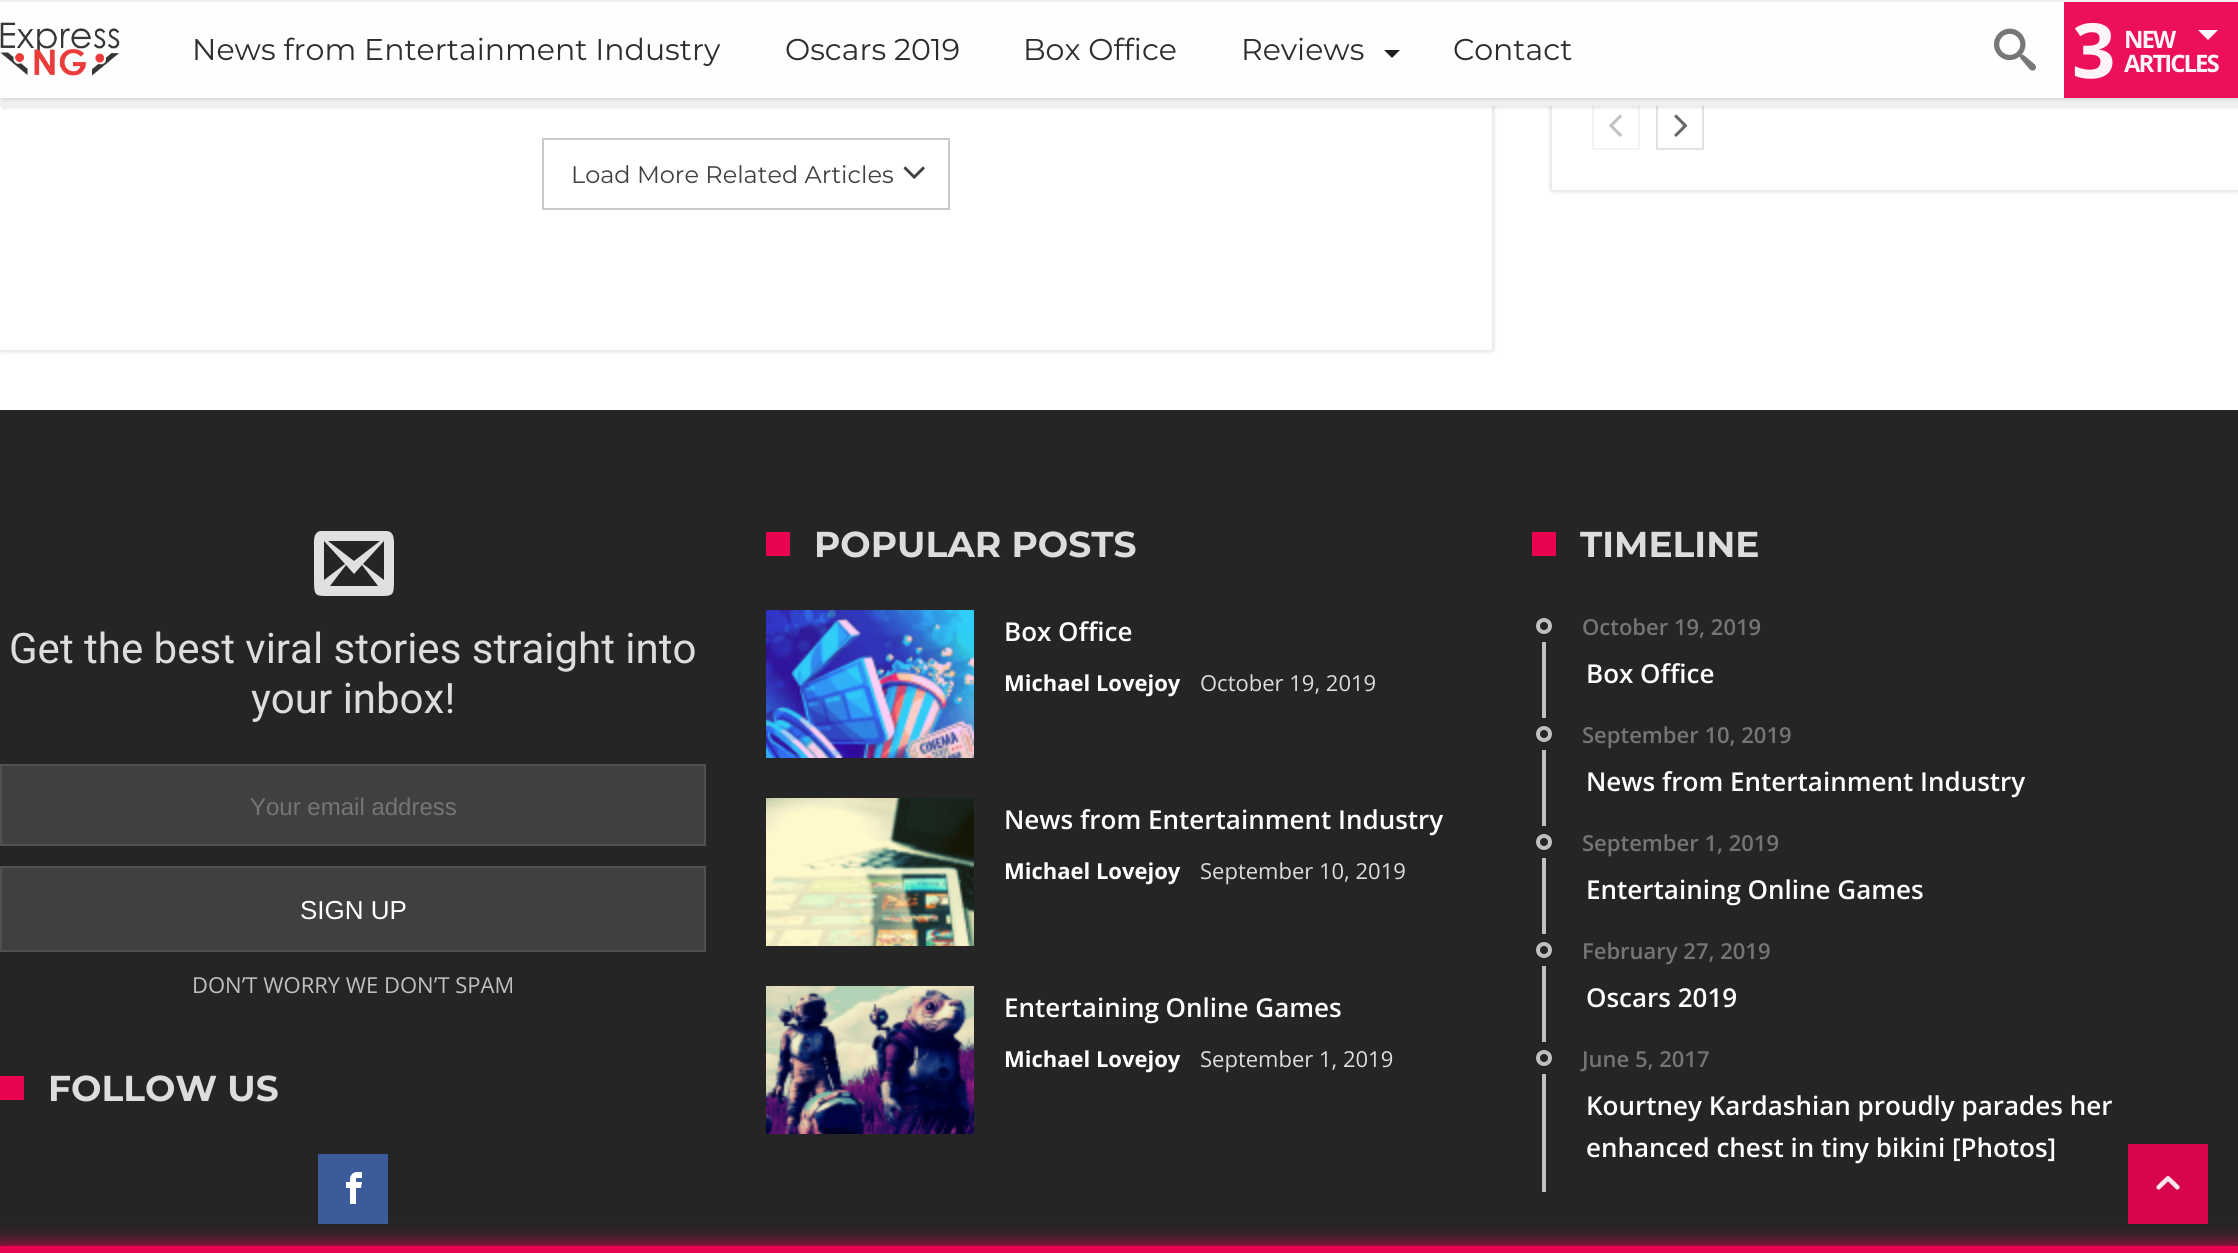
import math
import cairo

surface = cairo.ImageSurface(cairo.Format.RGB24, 2238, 1253)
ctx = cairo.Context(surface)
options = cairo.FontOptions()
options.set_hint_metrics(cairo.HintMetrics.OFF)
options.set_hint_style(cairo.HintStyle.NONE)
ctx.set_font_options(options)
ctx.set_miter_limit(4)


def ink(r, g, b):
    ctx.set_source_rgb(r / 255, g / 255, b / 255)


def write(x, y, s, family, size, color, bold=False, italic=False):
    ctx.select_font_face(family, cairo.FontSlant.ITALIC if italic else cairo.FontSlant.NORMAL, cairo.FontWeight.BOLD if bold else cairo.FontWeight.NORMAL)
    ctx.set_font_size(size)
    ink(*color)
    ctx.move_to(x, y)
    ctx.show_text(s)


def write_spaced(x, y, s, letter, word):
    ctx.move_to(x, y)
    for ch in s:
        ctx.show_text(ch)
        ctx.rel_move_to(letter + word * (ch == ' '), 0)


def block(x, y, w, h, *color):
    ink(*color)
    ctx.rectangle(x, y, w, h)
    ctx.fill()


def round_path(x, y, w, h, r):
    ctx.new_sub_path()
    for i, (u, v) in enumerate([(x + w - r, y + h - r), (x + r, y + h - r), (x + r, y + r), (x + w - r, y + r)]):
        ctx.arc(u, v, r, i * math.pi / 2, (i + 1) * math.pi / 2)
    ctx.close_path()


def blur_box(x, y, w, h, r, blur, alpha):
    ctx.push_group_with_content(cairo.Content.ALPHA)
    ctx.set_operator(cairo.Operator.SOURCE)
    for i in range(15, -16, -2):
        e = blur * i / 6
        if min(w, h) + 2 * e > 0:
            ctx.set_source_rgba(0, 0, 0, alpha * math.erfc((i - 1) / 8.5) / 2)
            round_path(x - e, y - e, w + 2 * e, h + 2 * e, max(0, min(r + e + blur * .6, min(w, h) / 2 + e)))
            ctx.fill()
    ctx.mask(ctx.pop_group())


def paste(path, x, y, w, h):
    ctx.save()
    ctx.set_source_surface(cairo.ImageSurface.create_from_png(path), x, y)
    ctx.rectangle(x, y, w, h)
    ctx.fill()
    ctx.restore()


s1 = dict(family="Montserrat", size=30, color=(45, 45, 45))
s2 = dict(family="Montserrat", size=24, color=(64, 64, 64))
s3 = dict(family="Roboto", size=42, color=(221, 221, 221))
s4 = dict(family="Liberation Sans", size=24, color=(117, 117, 117))
s5 = dict(family="Liberation Sans", size=26, color=(255, 255, 255))
s6 = dict(family="Open Sans", size=22, color=(192, 192, 192))
s7 = dict(family="Montserrat", size=36, color=(221, 221, 221), bold=True)
s8 = dict(family="Open Sans SemiBold", size=26, color=(255, 255, 255))
s9 = dict(family="Open Sans", size=22, color=(255, 255, 255), bold=True)
s10 = dict(family="Open Sans", size=22, color=(221, 221, 221))
s11 = dict(family="Open Sans SemiBold", size=22, color=(117, 117, 117))

ink(255, 255, 255)
ctx.paint()
ink(0, 0, 0)
blur_box(1552, -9, 686, 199, 0, 3, 0.21)
block(1552, 0, 686, 190, 255, 255, 255)
paste("pic4.png", 1592, 0, 606, 64)
gradient = cairo.LinearGradient(1895, -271, 1895, 63)
gradient.add_color_stop_rgba(0, 0, 0, 0, 0)
gradient.add_color_stop_rgba(1, 0, 0, 0, 0.7)
ctx.set_source(gradient)
ctx.rectangle(1592, 0, 606, 64)
ctx.fill()
ctx.rectangle(1593, 103, 46, 46)
ink(244, 244, 244)
ctx.stroke()
paste("pic5.png", 1609, 114, 13, 23)
ctx.rectangle(1657, 103, 46, 46)
ink(227, 227, 227)
ctx.stroke()
paste("pic6.png", 1674, 114, 14, 23)
ctx.save()
ctx.rectangle(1, 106, 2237, 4)
ctx.clip()
ink(0, 0, 0)
blur_box(2, 2, 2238, 106, 0, 2, 0.1)
ctx.restore()
ctx.save()
ctx.set_fill_rule(cairo.FillRule.EVEN_ODD)
ctx.new_path()
ctx.move_to(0, 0)
ctx.line_to(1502, 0)
ctx.line_to(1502, 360)
ctx.line_to(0, 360)
ctx.close_path()
ctx.move_to(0, -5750)
ctx.line_to(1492, -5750)
ctx.line_to(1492, 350)
ctx.line_to(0, 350)
ctx.close_path()
ctx.clip()
ink(0, 0, 0)
blur_box(0, -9, 1492, 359, 0, 3, 0.21)
ctx.restore()
ctx.set_source_rgba(0.941, 0.941, 0.941, 0.95)
ctx.rectangle(0, 0, 2238, 106)
ctx.fill()
ctx.rectangle(1592, 0, 606, 2)
ctx.fill()
ctx.save()
ctx.rectangle(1, 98, 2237, 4)
ctx.clip()
ink(0, 0, 0)
blur_box(2, 4, 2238, 96, 0, 2, 0.1)
ctx.restore()
ctx.set_source_rgba(1, 1, 1, 0.95)
ctx.rectangle(0, 2, 2064, 96)
ctx.fill()
paste("pic1.png", 0, 22, 120, 54)
write(192, 60, "News from Entertainment Industry", **s1)
write(785, 60, "Oscars 2019", **s1)
write(1023, 60, "Box Office", **s1)
write(1241, 60, "Reviews", **s1)
ink(29, 29, 29)
ctx.new_path()
ctx.move_to(1384, 50)
ctx.line_to(1400, 50)
ctx.line_to(1392, 58)
ctx.close_path()
ctx.fill()
write(1453, 60, "Contact", **s1)
paste("pic2.png", 1994, 28, 42, 43)
block(2064, 2, 174, 96, 235, 15, 92)
ctx.select_font_face("Open Sans", cairo.FontSlant.NORMAL, cairo.FontWeight.BOLD)
ctx.set_font_size(76)
ink(254, 243, 247)
write_spaced(2072, 78, "3", -10, 0)
ctx.set_font_size(24)
write_spaced(2124, 48, "NEW", -2, 0)
ink(255, 255, 255)
ctx.new_path()
ctx.move_to(2198, 30)
ctx.line_to(2218, 30)
ctx.line_to(2208, 40)
ctx.close_path()
ctx.fill()
ink(254, 243, 247)
write_spaced(2124, 72, "ARTICLES", -2, 0)
ctx.rectangle(543, 139, 406, 70)
ink(201, 201, 201)
ctx.stroke()
write(571, 183, "Load More Related Articles", **s2)
paste("pic3.png", 903, 166, 22, 13)
block(0, 410, 2238, 836, 37, 37, 37)
ink(224, 224, 224)
ctx.new_path()
ctx.move_to(386, 531)
ctx.line_to(320, 531)
ctx.curve_to(313, 533, 314, 541, 314, 547)
ctx.line_to(314, 580)
ctx.curve_to(314, 597, 315, 596, 332, 596)
ctx.line_to(376, 596)
ctx.curve_to(393, 596, 394, 597, 394, 580)
ctx.line_to(394, 547)
ctx.curve_to(394, 541, 395, 531, 386, 531)
ctx.close_path()
ctx.move_to(345, 564)
ctx.line_to(324, 580)
ctx.line_to(324, 541)
ctx.close_path()
ctx.move_to(328, 541)
ctx.line_to(380, 541)
ctx.line_to(354, 561)
ctx.close_path()
ctx.move_to(346, 565)
ctx.line_to(354, 574)
ctx.line_to(362, 565)
ctx.line_to(378, 586)
ctx.line_to(330, 586)
ctx.close_path()
ctx.move_to(363, 564)
ctx.line_to(384, 541)
ctx.line_to(384, 580)
ctx.close_path()
ctx.fill()
write(9, 663, "Get the best viral stories straight into", **s3)
write(251, 713, "your inbox!", **s3)
ink(64, 64, 64)
ctx.rectangle(1, 765, 704, 80)
ctx.fill_preserve()
ink(80, 80, 80)
ctx.stroke()
write(250, 815, "Your email address", **s4)
ink(64, 64, 64)
ctx.rectangle(1, 867, 704, 84)
ctx.fill_preserve()
ink(80, 80, 80)
ctx.stroke()
write(300, 919, "SIGN UP", **s5)
write(192, 993, "DON’T WORRY WE DON’T SPAM", **s6)
block(0, 1076, 24, 24, 234, 2, 83)
write(48, 1101, "FOLLOW US", **s7)
block(318, 1154, 70, 70, 60, 91, 155)
paste("pic7.png", 346, 1172, 16, 32)
block(766, 532, 24, 24, 234, 2, 83)
write(814, 557, "POPULAR POSTS", **s7)
paste("pic8.png", 766, 610, 208, 148)
write(1004, 641, "Box Office", **s8)
write(1004, 691, "Michael Lovejoy", **s9)
write(1200, 691, "October 19, 2019", **s10)
paste("pic9.png", 766, 798, 208, 148)
write(1004, 829, "News from Entertainment Industry", **s8)
write(1004, 879, "Michael Lovejoy", **s9)
write(1200, 879, "September 10, 2019", **s10)
paste("pic10.png", 766, 986, 208, 148)
write(1004, 1017, "Entertaining Online Games", **s8)
write(1004, 1067, "Michael Lovejoy", **s9)
write(1200, 1067, "September 1, 2019", **s10)
block(1532, 532, 24, 24, 234, 2, 83)
write(1580, 557, "TIMELINE", **s7)
ctx.new_path()
ctx.arc(1544, 626, 6, 0, 2 * math.pi)
ink(192, 192, 192)
ctx.set_line_width(4)
ctx.stroke()
write(1582, 635, "October 19, 2019", **s11)
block(1542, 642, 4, 76, 192, 192, 192)
write(1586, 683, "Box Office", **s8)
ctx.new_path()
ctx.arc(1544, 734, 6, 0, 2 * math.pi)
ink(192, 192, 192)
ctx.stroke()
write(1582, 743, "September 10, 2019", **s11)
block(1542, 750, 4, 76, 192, 192, 192)
write(1586, 791, "News from Entertainment Industry", **s8)
ctx.new_path()
ctx.arc(1544, 842, 6, 0, 2 * math.pi)
ink(192, 192, 192)
ctx.stroke()
write(1582, 851, "September 1, 2019", **s11)
block(1542, 858, 4, 76, 192, 192, 192)
write(1586, 899, "Entertaining Online Games", **s8)
ctx.new_path()
ctx.arc(1544, 950, 6, 0, 2 * math.pi)
ink(192, 192, 192)
ctx.stroke()
write(1582, 959, "February 27, 2019", **s11)
block(1542, 966, 4, 76, 192, 192, 192)
write(1586, 1007, "Oscars 2019", **s8)
ctx.new_path()
ctx.arc(1544, 1058, 6, 0, 2 * math.pi)
ink(192, 192, 192)
ctx.stroke()
write(1582, 1067, "June 5, 2017", **s11)
block(1542, 1074, 4, 118, 192, 192, 192)
write(1586, 1115, "Kourtney Kardashian proudly parades her", **s8)
write(1586, 1157, "enhanced chest in tiny bikini [Photos]", **s8)
ink(234, 2, 83)
blur_box(0, 1246, 2238, 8, 0, 10, 1)
block(2128, 1144, 80, 80, 214, 5, 78)
paste("pic11.png", 2156, 1176, 24, 14)
block(0, 1246, 2238, 7, 234, 2, 83)
surface.write_to_png("screenshot.png")
